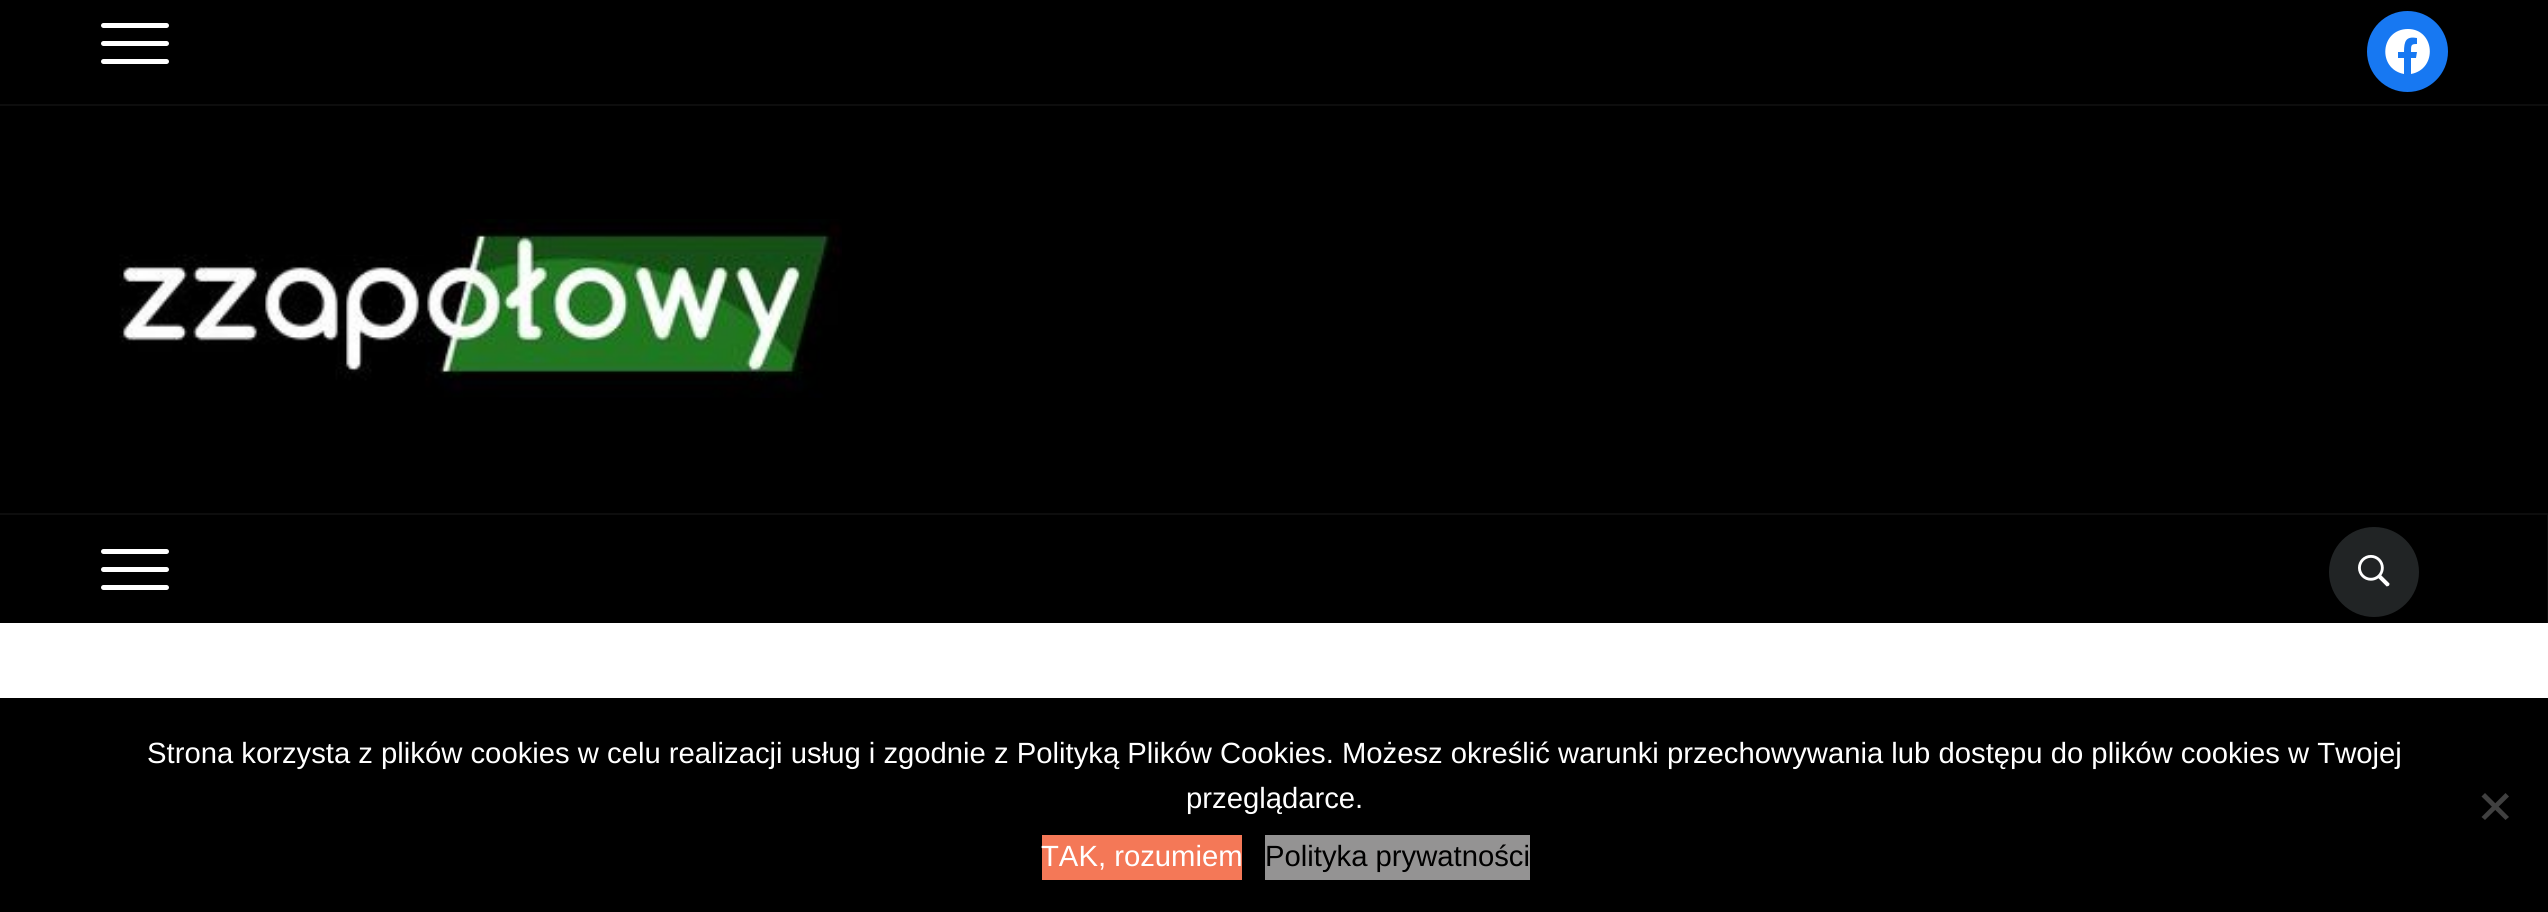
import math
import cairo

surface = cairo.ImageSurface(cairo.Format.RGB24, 2548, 912)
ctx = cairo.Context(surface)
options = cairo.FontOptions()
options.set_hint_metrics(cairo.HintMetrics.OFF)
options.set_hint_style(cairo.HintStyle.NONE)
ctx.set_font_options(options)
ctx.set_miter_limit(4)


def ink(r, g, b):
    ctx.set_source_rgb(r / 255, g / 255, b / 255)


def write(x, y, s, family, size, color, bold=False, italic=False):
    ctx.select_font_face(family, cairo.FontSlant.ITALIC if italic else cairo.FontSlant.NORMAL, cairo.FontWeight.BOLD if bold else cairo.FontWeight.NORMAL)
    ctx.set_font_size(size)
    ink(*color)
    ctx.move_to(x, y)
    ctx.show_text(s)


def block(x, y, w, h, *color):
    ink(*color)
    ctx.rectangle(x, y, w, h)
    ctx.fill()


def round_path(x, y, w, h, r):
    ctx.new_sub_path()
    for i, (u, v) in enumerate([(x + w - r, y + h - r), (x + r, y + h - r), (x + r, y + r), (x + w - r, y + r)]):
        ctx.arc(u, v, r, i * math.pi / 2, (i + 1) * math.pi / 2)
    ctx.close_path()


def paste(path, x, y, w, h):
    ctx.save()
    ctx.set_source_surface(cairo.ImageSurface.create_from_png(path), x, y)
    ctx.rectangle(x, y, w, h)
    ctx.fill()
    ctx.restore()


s1 = dict(family="Liberation Sans", size=29.25, color=(255, 255, 255))
s2 = dict(family="Liberation Sans", size=29.25, color=(0, 0, 0))

ink(255, 255, 255)
ctx.paint()
block(0, 0, 2548, 623, 0, 0, 0)
block(0, 104, 2548, 2, 13, 13, 13)
ink(255, 255, 255)
round_path(101, 23, 68, 5, 2.5)
ctx.fill()
round_path(101, 41, 68, 5, 2.5)
ctx.fill()
round_path(101, 59, 68, 5, 2.5)
ctx.fill()
ink(23, 120, 242)
ctx.arc(2407.5, 51.5, 40.5, 0, 2 * math.pi)
ctx.fill()
ink(255, 255, 255)
ctx.new_path()
ctx.move_to(2408, 29)
ctx.curve_to(2380, 29, 2377, 69, 2404, 74)
ctx.line_to(2404, 58)
ctx.line_to(2398, 58)
ctx.line_to(2398, 52)
ctx.line_to(2404, 52)
ctx.curve_to(2404, 41, 2406, 36, 2417, 38)
ctx.line_to(2417, 44)
ctx.curve_to(2411, 44, 2411, 45, 2411, 52)
ctx.line_to(2417, 52)
ctx.line_to(2416, 58)
ctx.line_to(2411, 58)
ctx.line_to(2411, 74)
ctx.curve_to(2438, 69, 2435, 29, 2408, 29)
ctx.close_path()
ctx.fill()
paste("pic1.png", 119, 219, 723, 179)
block(0, 513, 2548, 2, 13, 13, 13)
block(2547, 515, 1, 108, 13, 13, 13)
ink(255, 255, 255)
round_path(101, 549, 68, 5, 2.5)
ctx.fill()
round_path(101, 567, 68, 5, 2.5)
ctx.fill()
round_path(101, 585, 68, 5, 2.5)
ctx.fill()
ink(33, 36, 37)
ctx.arc(2374, 572, 45, 0, 2 * math.pi)
ctx.fill()
paste("pic2.png", 2358, 554, 32, 33)
block(0, 698, 2548, 214, 0, 0, 0)
write(147, 763, "Strona korzysta z plików cookies w celu realizacji usług i zgodnie z Polityką Plików Cookies. Możesz określić warunki przechowywania lub dostępu do plików cookies w Twojej", **s1)
write(1186, 808, "przeglądarce.", **s1)
ink(64, 64, 64)
ctx.new_path()
ctx.move_to(2505.5, 793)
ctx.line_to(2509, 796.5)
ctx.line_to(2485, 820)
ctx.line_to(2481.5, 817)
ctx.close_path()
ctx.fill()
ctx.new_path()
ctx.move_to(2481.5, 796.5)
ctx.line_to(2485, 793)
ctx.line_to(2509, 817)
ctx.line_to(2505.5, 820)
ctx.close_path()
ctx.fill()
block(1042, 835, 200, 45, 244, 120, 87)
write(1041, 866, "TAK, rozumiem", **s1)
block(1265, 835, 265, 45, 148, 147, 147)
write(1265, 866, "Polityka prywatności", **s2)
surface.write_to_png("screenshot.png")
